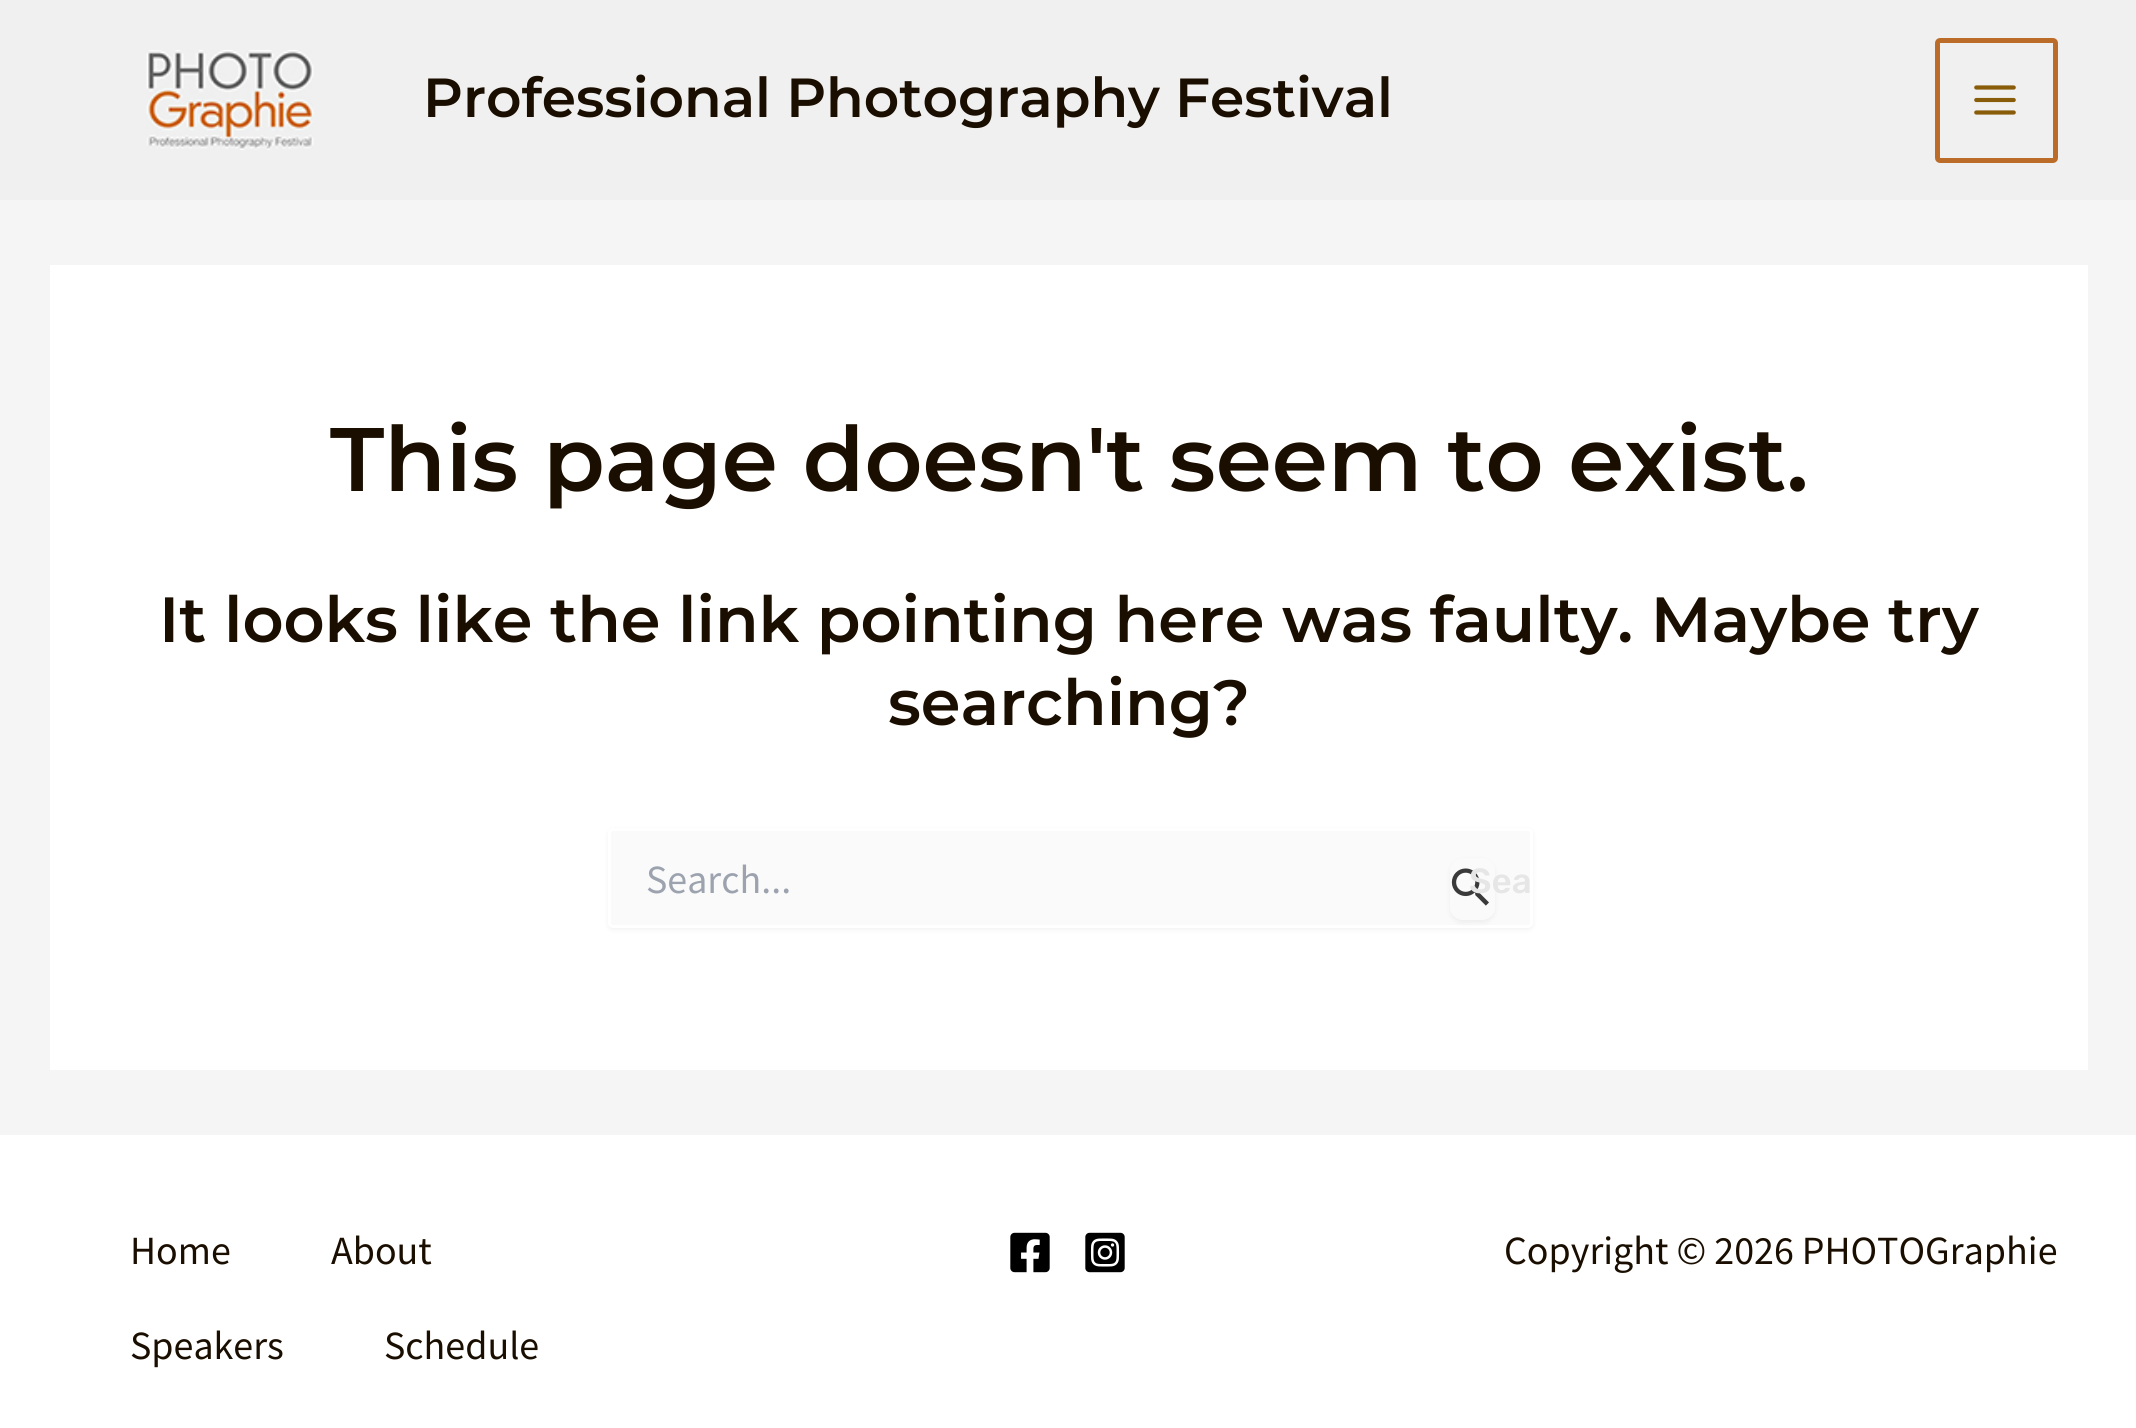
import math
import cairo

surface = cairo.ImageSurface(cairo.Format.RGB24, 2136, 1428)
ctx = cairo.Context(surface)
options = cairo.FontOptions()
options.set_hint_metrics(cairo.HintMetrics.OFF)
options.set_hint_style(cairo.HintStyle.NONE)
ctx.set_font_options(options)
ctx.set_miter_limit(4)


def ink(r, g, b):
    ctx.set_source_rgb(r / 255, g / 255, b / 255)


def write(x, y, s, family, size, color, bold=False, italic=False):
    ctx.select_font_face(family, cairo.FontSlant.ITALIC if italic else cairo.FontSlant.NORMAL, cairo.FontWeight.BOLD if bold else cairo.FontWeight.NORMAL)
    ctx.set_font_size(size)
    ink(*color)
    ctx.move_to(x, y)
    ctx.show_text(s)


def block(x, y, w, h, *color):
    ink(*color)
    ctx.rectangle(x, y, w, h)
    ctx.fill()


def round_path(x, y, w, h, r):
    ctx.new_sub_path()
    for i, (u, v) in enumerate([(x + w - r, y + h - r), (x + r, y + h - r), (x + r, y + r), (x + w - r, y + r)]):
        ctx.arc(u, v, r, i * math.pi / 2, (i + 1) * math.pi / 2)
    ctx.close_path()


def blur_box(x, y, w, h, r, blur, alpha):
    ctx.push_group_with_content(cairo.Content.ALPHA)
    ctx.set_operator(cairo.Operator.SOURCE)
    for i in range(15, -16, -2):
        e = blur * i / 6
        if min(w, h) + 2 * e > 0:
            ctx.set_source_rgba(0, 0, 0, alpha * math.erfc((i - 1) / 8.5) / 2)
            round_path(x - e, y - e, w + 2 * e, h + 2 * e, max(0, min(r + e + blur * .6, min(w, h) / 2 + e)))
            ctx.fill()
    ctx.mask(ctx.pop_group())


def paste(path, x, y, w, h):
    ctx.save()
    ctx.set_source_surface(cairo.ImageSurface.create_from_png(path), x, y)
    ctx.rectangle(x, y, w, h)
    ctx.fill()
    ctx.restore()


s1 = dict(family="Montserrat SemiBold", size=55, color=(26, 14, 0))
s2 = dict(family="Montserrat SemiBold", size=90, color=(26, 14, 0))
s3 = dict(family="Montserrat SemiBold", size=63.75, color=(26, 14, 0))
s4 = dict(family="Source Sans Pro", size=40, color=(156, 163, 175))
s5 = dict(family="Rubik Medium", size=35, color=(230, 230, 230))
s6 = dict(family="Source Sans Pro", size=40, color=(26, 14, 0))

ink(245, 245, 245)
ctx.paint()
block(0, 0, 2136, 200, 240, 240, 240)
paste("pic1.png", 146, 50, 168, 100)
write(423, 117, "Professional Photography Festival", **s1)
round_path(1937.5, 40.5, 118, 120, 2.5)
ink(187, 108, 41)
ctx.set_line_width(5)
ctx.stroke()
paste("pic2.png", 1974, 85, 42, 30)
block(50, 265, 2038, 805, 255, 255, 255)
write(330, 491, "This page doesn't seem to exist.", **s2)
write(159, 642, "It looks like the link pointing here was faulty. Maybe try", **s3)
write(888, 725, "searching?", **s3)
ink(0, 0, 0)
blur_box(608, 830, 925, 100, 5, 2.5, 0.05)
ink(250, 250, 250)
round_path(609.5, 829.5, 922, 97, 3.5)
ctx.fill_preserve()
ink(255, 255, 255)
ctx.set_line_width(3)
ctx.stroke()
write(646, 893, "Search...", **s4)
ctx.save()
ctx.set_fill_rule(cairo.FillRule.EVEN_ODD)
ctx.new_path()
ctx.move_to(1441, 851)
ctx.line_to(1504, 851)
ctx.line_to(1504, 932)
ctx.line_to(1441, 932)
ctx.close_path()
ctx.move_to(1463, 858)
ctx.line_to(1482, 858)
ctx.curve_to(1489, 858, 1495, 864, 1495, 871)
ctx.line_to(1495, 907)
ctx.curve_to(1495, 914, 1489, 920, 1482, 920)
ctx.line_to(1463, 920)
ctx.curve_to(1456, 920, 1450, 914, 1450, 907)
ctx.line_to(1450, 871)
ctx.curve_to(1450, 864, 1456, 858, 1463, 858)
ctx.close_path()
ctx.clip()
ink(0, 0, 0)
blur_box(1450, 860, 45, 63, 13, 2.5, 0.05)
ctx.restore()
paste("pic3.png", 1451, 868, 38, 38)
write(1469, 893, "Sea", **s5)
block(0, 1135, 2136, 293, 255, 255, 255)
write(130, 1264, "Home", **s6)
write(331, 1264, "About", **s6)
write(130, 1359, "Speakers", **s6)
write(384, 1359, "Schedule", **s6)
paste("pic4.png", 1010, 1232, 40, 41)
paste("pic5.png", 1085, 1232, 40, 41)
write(1504, 1264, "Copyright © 2026 PHOTOGraphie", **s6)
surface.write_to_png("screenshot.png")
